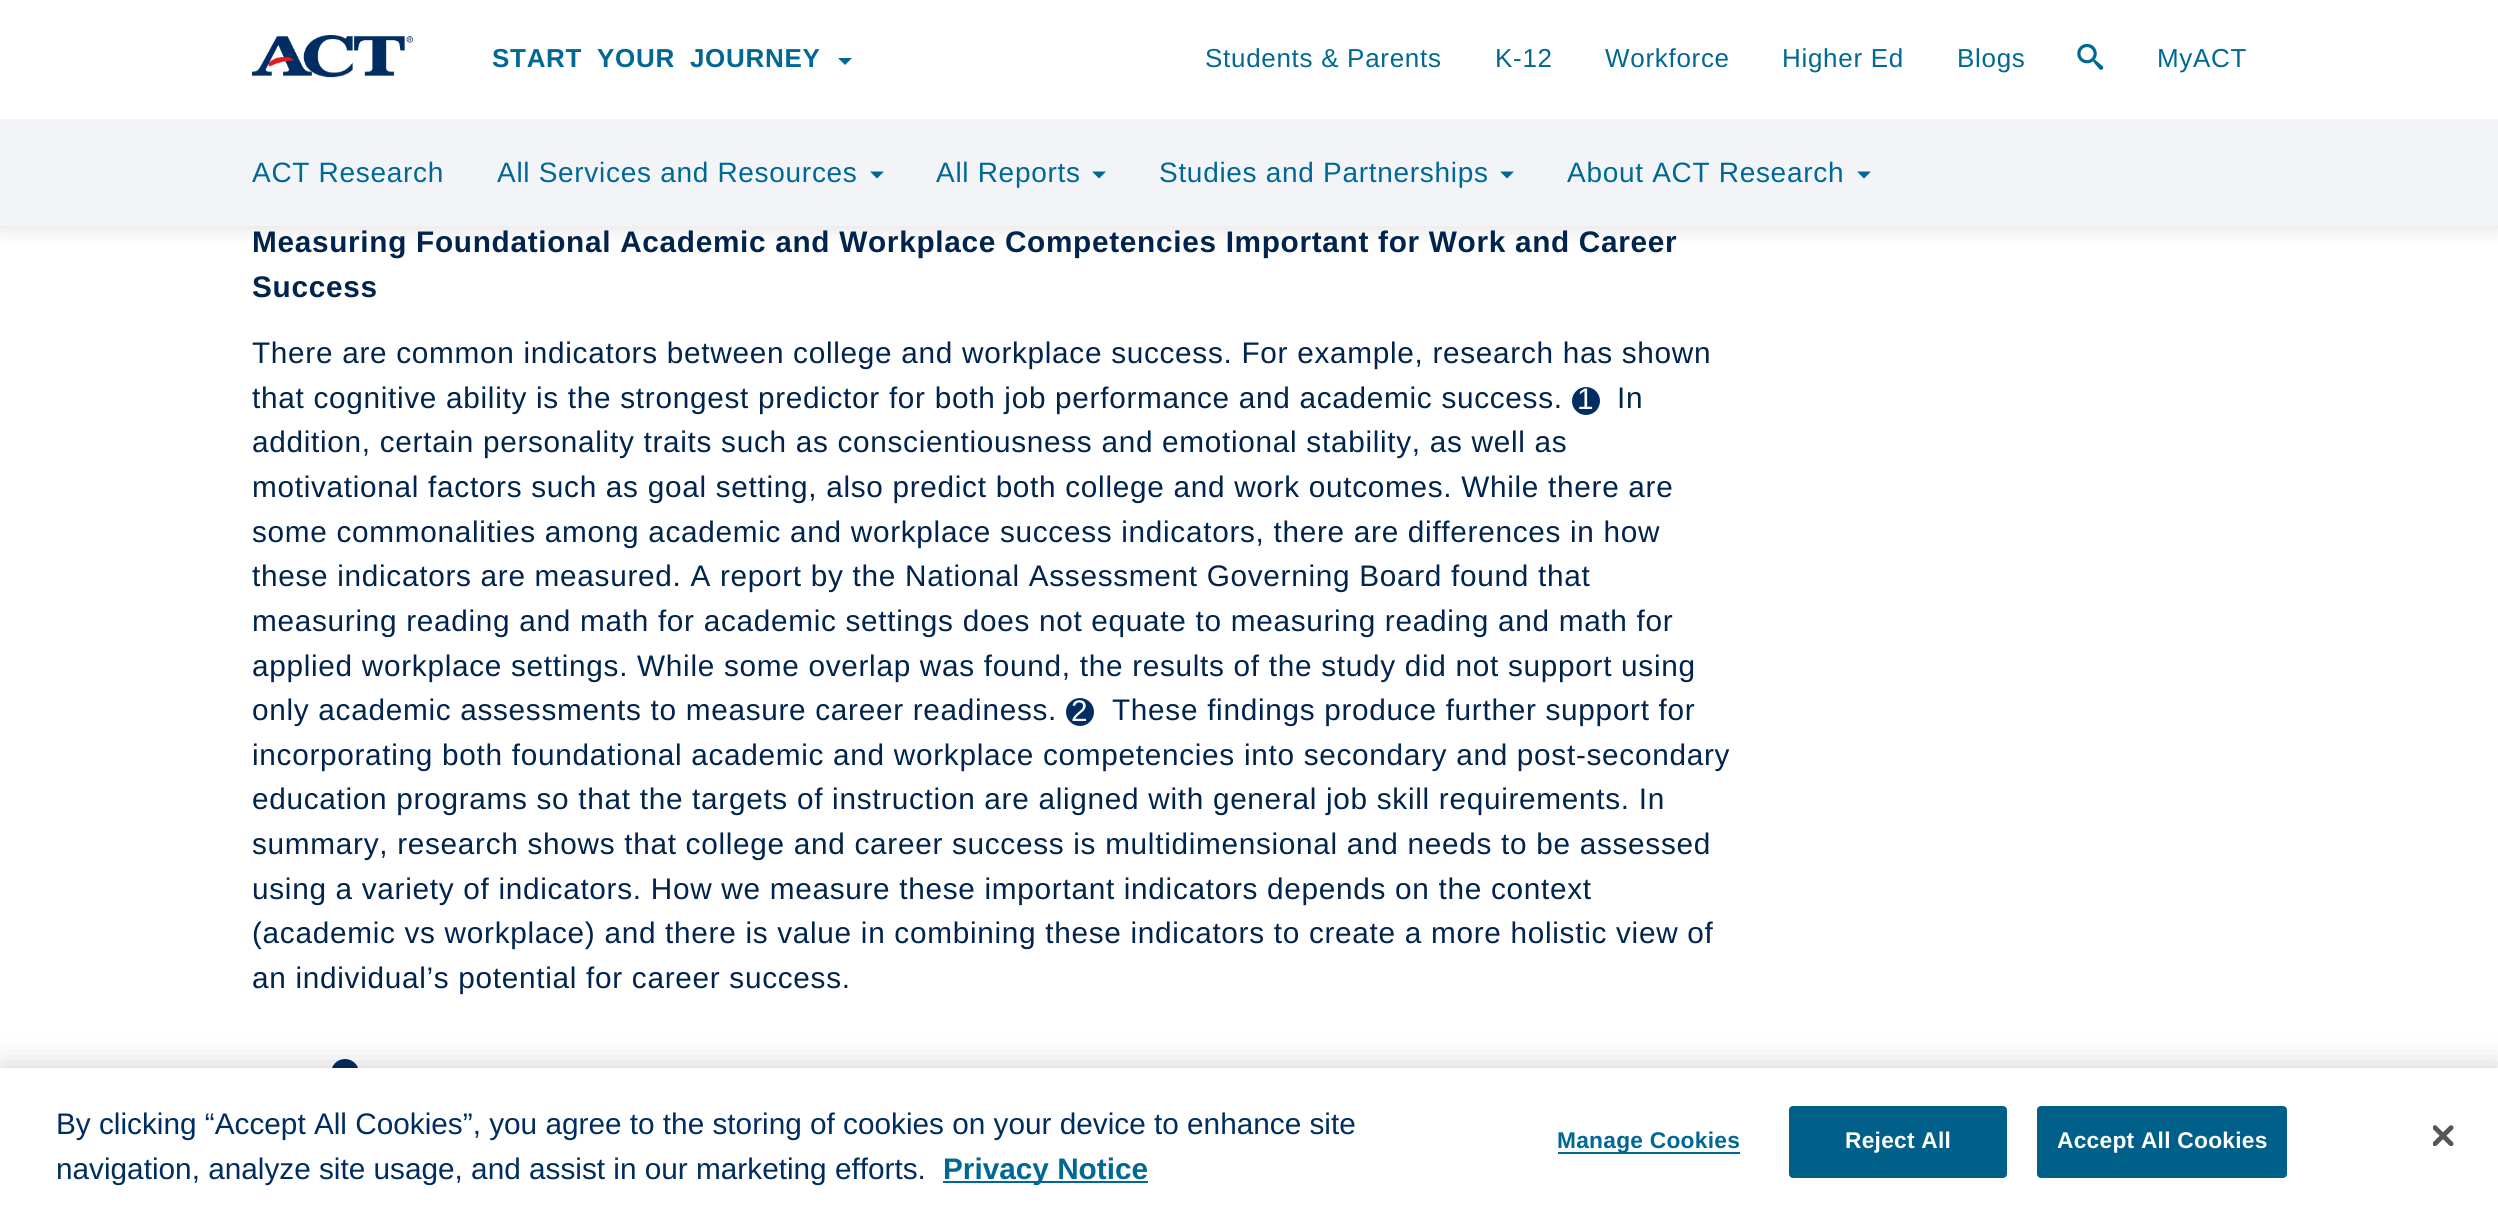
import math
import cairo

surface = cairo.ImageSurface(cairo.Format.RGB24, 2498, 1209)
ctx = cairo.Context(surface)
options = cairo.FontOptions()
options.set_hint_metrics(cairo.HintMetrics.OFF)
options.set_hint_style(cairo.HintStyle.NONE)
ctx.set_font_options(options)
ctx.set_miter_limit(4)


def ink(r, g, b):
    ctx.set_source_rgb(r / 255, g / 255, b / 255)


def write(x, y, s, family, size, color, bold=False, italic=False):
    ctx.select_font_face(family, cairo.FontSlant.ITALIC if italic else cairo.FontSlant.NORMAL, cairo.FontWeight.BOLD if bold else cairo.FontWeight.NORMAL)
    ctx.set_font_size(size)
    ink(*color)
    ctx.move_to(x, y)
    ctx.show_text(s)


def write_spaced(x, y, s, letter, word):
    ctx.move_to(x, y)
    for ch in s:
        ctx.show_text(ch)
        ctx.rel_move_to(letter + word * (ch == ' '), 0)


def block(x, y, w, h, *color):
    ink(*color)
    ctx.rectangle(x, y, w, h)
    ctx.fill()


def round_path(x, y, w, h, r):
    ctx.new_sub_path()
    for i, (u, v) in enumerate([(x + w - r, y + h - r), (x + r, y + h - r), (x + r, y + r), (x + w - r, y + r)]):
        ctx.arc(u, v, r, i * math.pi / 2, (i + 1) * math.pi / 2)
    ctx.close_path()


def blur_box(x, y, w, h, r, blur, alpha):
    ctx.push_group_with_content(cairo.Content.ALPHA)
    ctx.set_operator(cairo.Operator.SOURCE)
    for i in range(15, -16, -2):
        e = blur * i / 6
        if min(w, h) + 2 * e > 0:
            ctx.set_source_rgba(0, 0, 0, alpha * math.erfc((i - 1) / 8.5) / 2)
            round_path(x - e, y - e, w + 2 * e, h + 2 * e, max(0, min(r + e + blur * .6, min(w, h) / 2 + e)))
            ctx.fill()
    ctx.mask(ctx.pop_group())


def paste(path, x, y, w, h):
    ctx.save()
    ctx.set_source_surface(cairo.ImageSurface.create_from_png(path), x, y)
    ctx.rectangle(x, y, w, h)
    ctx.fill()
    ctx.restore()


s1 = dict(family="Liberation Sans", size=29.75, color=(0, 45, 97))
s2 = dict(family="Liberation Sans", size=29.75, color=(0, 104, 148), bold=True)

ink(255, 255, 255)
ctx.paint()
ctx.save()
ctx.rectangle(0, 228, 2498, 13)
ctx.clip()
ink(0, 0, 0)
blur_box(0, 0, 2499, 228, 0, 13, 0.12)
ctx.restore()
block(0, 119, 2498, 107, 242, 244, 247)
block(0, 226, 2498, 2, 238, 238, 238)
paste("pic1.png", 252, 35, 161, 43)
ctx.select_font_face("Liberation Sans", cairo.FontSlant.NORMAL, cairo.FontWeight.BOLD)
ctx.set_font_size(26)
ink(0, 104, 148)
write_spaced(492, 67, "START YOUR JOURNEY", 0.7, 7)
ctx.new_path()
ctx.move_to(838, 58)
ctx.line_to(852, 58)
ctx.line_to(845, 65)
ctx.close_path()
ctx.fill()
ctx.select_font_face("Liberation Sans")
write_spaced(1205, 67, "Students & Parents", 0.7, 0)
write_spaced(1495, 67, "K-12", 0.7, 0)
write_spaced(1605, 67, "Workforce", 0.7, 0)
write_spaced(1782, 67, "Higher Ed", 0.7, 0)
write_spaced(1957, 67, "Blogs", 0.7, 0)
paste("pic2.png", 2077, 43, 27, 27)
write_spaced(2157, 67, "MyACT", 0.7, 0)
ctx.set_font_size(28)
write_spaced(252, 182, "ACT Research", 0.7, 0)
write_spaced(497, 182, "All Services and Resources", 0.7, 0)
ctx.new_path()
ctx.move_to(870, 171.5)
ctx.line_to(884, 171.5)
ctx.line_to(877, 178.5)
ctx.close_path()
ctx.fill()
write_spaced(936, 182, "All Reports", 0.7, 0)
ctx.new_path()
ctx.move_to(1092, 171.5)
ctx.line_to(1106, 171.5)
ctx.line_to(1099, 178.5)
ctx.close_path()
ctx.fill()
write_spaced(1159, 182, "Studies and Partnerships", 0.7, 0)
ctx.new_path()
ctx.move_to(1500, 171.5)
ctx.line_to(1514, 171.5)
ctx.line_to(1507, 178.5)
ctx.close_path()
ctx.fill()
write_spaced(1567, 182, "About ACT Research", 0.7, 0)
ctx.new_path()
ctx.move_to(1857, 171.5)
ctx.line_to(1871, 171.5)
ctx.line_to(1864, 178.5)
ctx.close_path()
ctx.fill()
ctx.select_font_face("Liberation Sans", cairo.FontSlant.NORMAL, cairo.FontWeight.BOLD)
ctx.set_font_size(29.75)
ink(0, 36, 77)
write_spaced(252, 252, "Measuring Foundational Academic and Workplace Competencies Important for Work and Career", 0.7, 0)
write_spaced(252, 297, "Success", 0.7, 0)
ctx.select_font_face("Liberation Sans")
write_spaced(252, 363, "There are common indicators between college and workplace success. For example, research has shown", 0.7, 0)
write_spaced(252, 408, "that cognitive ability is the strongest predictor for both job performance and academic success.", 0.7, 0)
ink(1, 45, 98)
ctx.new_path()
ctx.arc(1586, 401, 14, 0, 2 * math.pi)
ctx.fill()
ink(255, 255, 255)
write_spaced(1577, 409, "1", 0.7, 0)
ink(0, 36, 77)
write_spaced(1617, 408, "In", 0.7, 0)
write_spaced(252, 452, "addition, certain personality traits such as conscientiousness and emotional stability, as well as", 0.7, 0)
write_spaced(252, 497, "motivational factors such as goal setting, also predict both college and work outcomes. While there are", 0.7, 0)
write_spaced(252, 542, "some commonalities among academic and workplace success indicators, there are differences in how", 0.7, 0)
write_spaced(252, 586, "these indicators are measured. A report by the National Assessment Governing Board found that", 0.7, 0)
write_spaced(252, 631, "measuring reading and math for academic settings does not equate to measuring reading and math for", 0.7, 0)
write_spaced(252, 676, "applied workplace settings. While some overlap was found, the results of the study did not support using", 0.7, 0)
write_spaced(252, 720, "only academic assessments to measure career readiness.", 0.7, 0)
ink(1, 45, 98)
ctx.new_path()
ctx.arc(1080, 712, 14, 0, 2 * math.pi)
ctx.fill()
ink(255, 255, 255)
write_spaced(1071, 721, "2", 0.7, 0)
ink(0, 36, 77)
write_spaced(1112, 720, "These findings produce further support for", 0.7, 0)
write_spaced(252, 765, "incorporating both foundational academic and workplace competencies into secondary and post-secondary", 0.7, 0)
write_spaced(252, 809, "education programs so that the targets of instruction are aligned with general job skill requirements. In", 0.7, 0)
write_spaced(252, 854, "summary, research shows that college and career success is multidimensional and needs to be assessed", 0.7, 0)
write_spaced(252, 899, "using a variety of indicators. How we measure these important indicators depends on the context", 0.7, 0)
write_spaced(252, 943, "(academic vs workplace) and there is value in combining these indicators to create a more holistic view of", 0.7, 0)
write_spaced(252, 988, "an individual’s potential for career success.", 0.7, 0)
ink(1, 45, 98)
ctx.new_path()
ctx.arc(345, 1073, 14, 0, 2 * math.pi)
ctx.fill()
ink(0, 0, 0)
blur_box(0, 1068, 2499, 141, 0, 16, 0.2)
block(0, 1068, 2498, 141, 255, 255, 255)
write(56, 1134, "By clicking “Accept All Cookies”, you agree to the storing of cookies on your device to enhance site", **s1)
write(56, 1179, "navigation, analyze site usage, and assist in our marketing efforts.", **s1)
block(943, 1181, 205, 2, 0, 104, 148)
write(943, 1179, "Privacy Notice", **s2)
block(1558, 1152, 182, 2, 0, 104, 148)
ctx.set_font_size(22.75)
write_spaced(1557, 1148, "Manage Cookies", 0.25, 0)
ink(1, 96, 137)
round_path(1790, 1107, 216, 70, 3)
ctx.fill_preserve()
ctx.stroke()
ink(255, 255, 255)
write_spaced(1845, 1148, "Reject All", 0.25, 0)
ink(1, 96, 137)
round_path(2038, 1107, 248, 70, 3)
ctx.fill_preserve()
ctx.stroke()
ink(255, 255, 255)
write_spaced(2057, 1148, "Accept All Cookies", 0.25, 0)
paste("pic3.png", 2433, 1125, 21, 21)
surface.write_to_png("screenshot.png")
